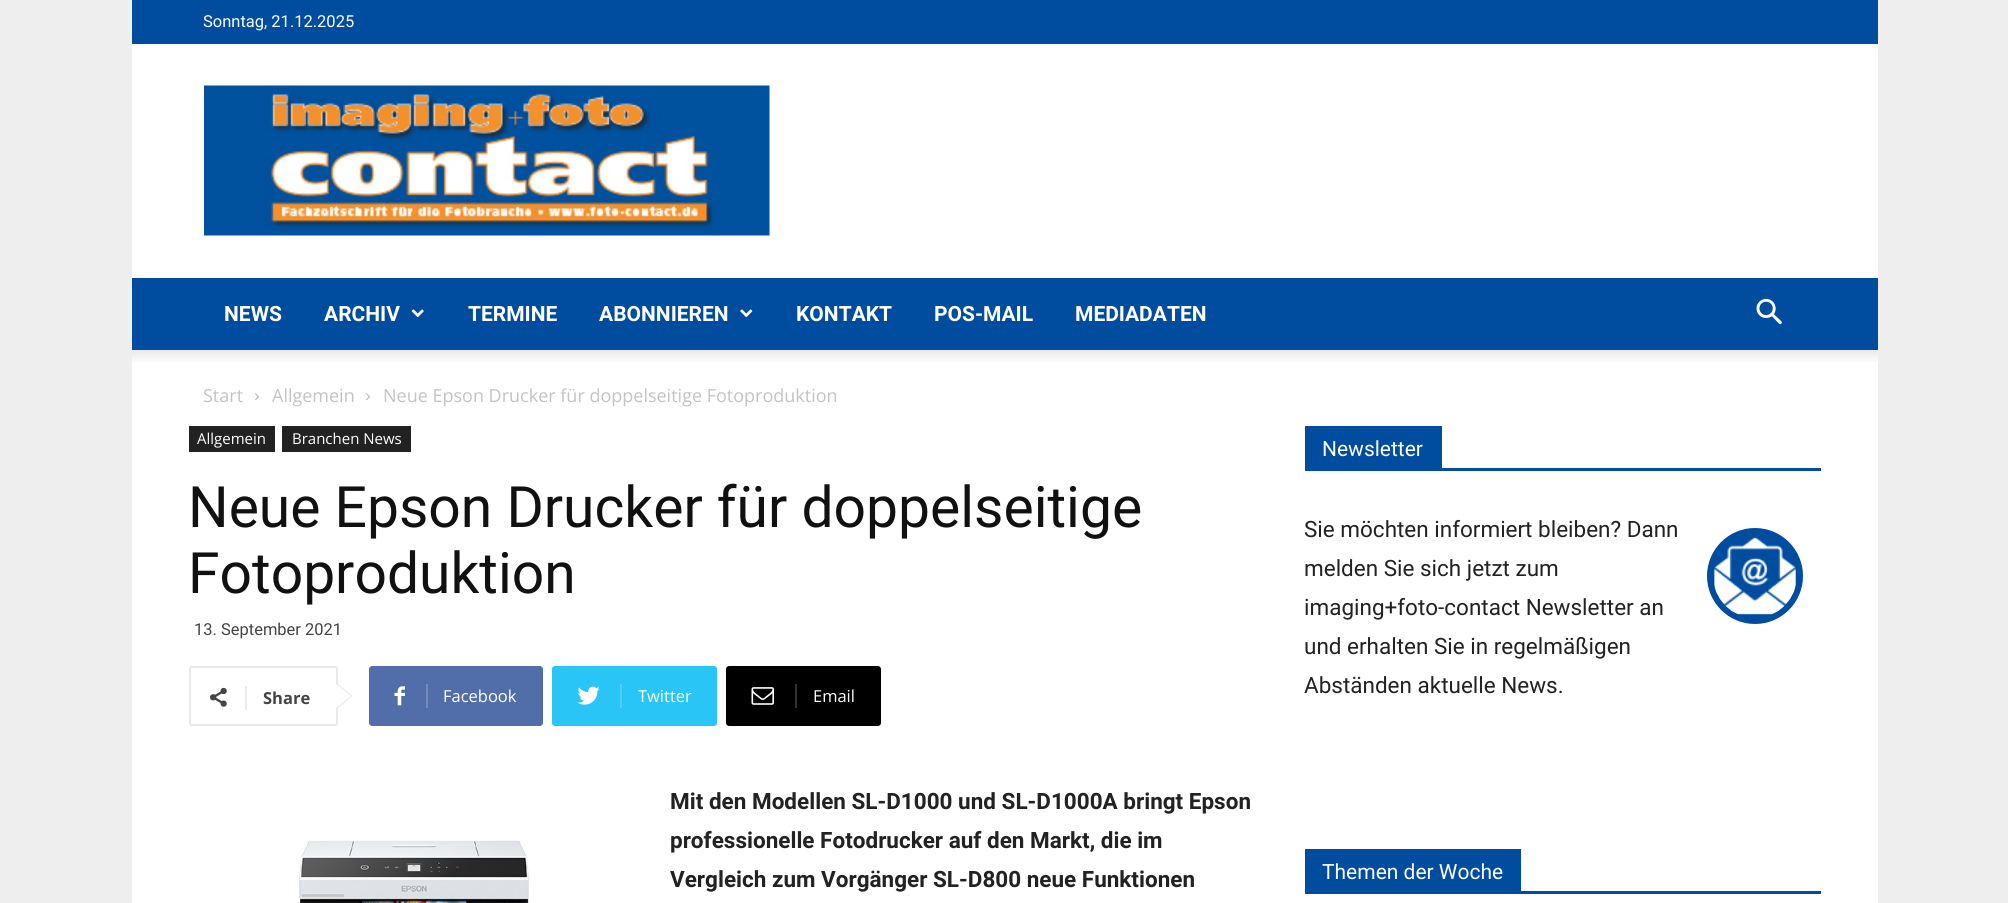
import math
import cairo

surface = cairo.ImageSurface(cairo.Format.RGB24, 2008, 903)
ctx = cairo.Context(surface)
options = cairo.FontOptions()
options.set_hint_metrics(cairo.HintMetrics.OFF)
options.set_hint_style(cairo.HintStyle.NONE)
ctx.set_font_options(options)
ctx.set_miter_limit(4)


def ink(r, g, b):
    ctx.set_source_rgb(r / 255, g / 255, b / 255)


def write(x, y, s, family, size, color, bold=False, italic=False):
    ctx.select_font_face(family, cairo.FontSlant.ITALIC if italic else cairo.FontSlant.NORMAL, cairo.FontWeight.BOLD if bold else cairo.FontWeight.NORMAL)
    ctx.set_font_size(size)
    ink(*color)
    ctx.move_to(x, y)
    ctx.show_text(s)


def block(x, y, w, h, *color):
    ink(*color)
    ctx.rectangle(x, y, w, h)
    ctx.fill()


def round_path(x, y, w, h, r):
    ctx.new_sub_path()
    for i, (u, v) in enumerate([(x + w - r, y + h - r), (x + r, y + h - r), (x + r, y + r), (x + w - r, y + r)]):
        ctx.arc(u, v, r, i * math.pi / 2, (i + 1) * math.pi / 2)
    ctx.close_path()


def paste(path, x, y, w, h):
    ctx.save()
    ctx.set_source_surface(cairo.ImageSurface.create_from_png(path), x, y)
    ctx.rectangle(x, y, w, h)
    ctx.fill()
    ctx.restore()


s1 = dict(family="Roboto", size=16.5, color=(255, 255, 255))
s2 = dict(family="Roboto", size=21, color=(255, 255, 255), bold=True)
s3 = dict(family="Open Sans", size=18, color=(195, 195, 195))
s4 = dict(family="Open Sans", size=15, color=(255, 255, 255))
s5 = dict(family="Roboto", size=57, color=(17, 17, 17))
s6 = dict(family="Roboto", size=16.5, color=(68, 68, 68))
s7 = dict(family="Open Sans", size=16.5, color=(68, 68, 68), bold=True)
s8 = dict(family="Open Sans", size=16.5, color=(255, 255, 255))
s9 = dict(family="Roboto", size=22.5, color=(34, 34, 34), bold=True)
s10 = dict(family="Roboto", size=21, color=(255, 255, 255))
s11 = dict(family="Roboto", size=22.5, color=(34, 34, 34))

ink(238, 238, 238)
ctx.paint()
block(132, 0, 1746, 44, 0, 77, 159)
write(203, 27, "Sonntag, 21.12.2025", **s1)
block(132, 44, 1746, 234, 255, 255, 255)
paste("pic1.png", 204, 85, 566, 151)
block(132, 278, 1746, 72, 0, 77, 159)
block(132, 350, 1746, 553, 255, 255, 255)
paste("pic5.png", 132, 349, 1746, 13)
block(204, 349, 1602, 1, 0, 77, 159)
write(224, 321, "NEWS", **s2)
write(324, 321, "ARCHIV", **s2)
paste("pic2.png", 411, 309, 13, 9)
write(468, 321, "TERMINE", **s2)
write(599, 321, "ABONNIEREN", **s2)
paste("pic3.png", 740, 309, 13, 9)
write(796, 321, "KONTAKT", **s2)
write(934, 321, "POS-MAIL", **s2)
write(1075, 321, "MEDIADATEN", **s2)
paste("pic4.png", 1756, 298, 26, 27)
write(203, 402, "Start", **s3)
paste("pic6.png", 255, 393, 4, 8)
write(272, 402, "Allgemein", **s3)
paste("pic6.png", 366, 393, 4, 8)
write(383, 402, "Neue Epson Drucker für doppelseitige Fotoproduktion", **s3)
block(189, 426, 86, 26, 34, 34, 34)
write(197, 444, "Allgemein", **s4)
block(282, 426, 129, 26, 34, 34, 34)
write(292, 444, "Branchen News", **s4)
write(188, 527, "Neue Epson Drucker für doppelseitige", **s5)
write(188, 593, "Fotoproduktion", **s5)
write(194, 635, "13. September 2021", **s6)
round_path(190, 667, 147, 58, 2)
ink(233, 233, 233)
ctx.stroke()
ctx.new_path()
ctx.move_to(336, 709.5)
ctx.line_to(336, 682.5)
ctx.line_to(352.5, 696)
ctx.close_path()
ctx.fill()
paste("pic7.png", 210, 687, 17, 20)
block(245, 686, 2, 24, 235, 235, 235)
write(263, 704, "Share", **s7)
ink(255, 255, 255)
ctx.new_path()
ctx.move_to(336, 708)
ctx.line_to(336, 684)
ctx.line_to(351, 696)
ctx.close_path()
ctx.fill()
ink(81, 110, 171)
ctx.new_path()
ctx.move_to(426, 666)
ctx.line_to(540, 666)
ctx.curve_to(541.5, 666, 543, 667.5, 543, 669)
ctx.line_to(543, 723)
ctx.curve_to(543, 724.5, 541.5, 726, 540, 726)
ctx.line_to(426, 726)
ctx.close_path()
ctx.fill()
ctx.new_path()
ctx.move_to(372, 666)
ctx.line_to(431, 666)
ctx.line_to(431, 726)
ctx.line_to(372, 726)
ctx.curve_to(370.5, 726, 369, 724.5, 369, 723)
ctx.line_to(369, 669)
ctx.curve_to(369, 667.5, 370.5, 666, 372, 666)
ctx.close_path()
ctx.fill()
paste("pic8.png", 394, 686, 11, 20)
block(426, 684, 2, 24, 116, 139, 188)
write(443, 702, "Facebook", **s8)
ink(41, 197, 246)
ctx.new_path()
ctx.move_to(620, 666)
ctx.line_to(714, 666)
ctx.curve_to(715.5, 666, 717, 667.5, 717, 669)
ctx.line_to(717, 723)
ctx.curve_to(717, 724.5, 715.5, 726, 714, 726)
ctx.line_to(620, 726)
ctx.close_path()
ctx.fill()
ctx.new_path()
ctx.move_to(555, 666)
ctx.line_to(624, 666)
ctx.line_to(624, 726)
ctx.line_to(555, 726)
ctx.curve_to(553.5, 726, 552, 724.5, 552, 723)
ctx.line_to(552, 669)
ctx.curve_to(552, 667.5, 553.5, 666, 555, 666)
ctx.close_path()
ctx.fill()
paste("pic9.png", 577, 686, 23, 19)
block(620, 684, 2, 24, 84, 209, 248)
write(638, 702, "Twitter", **s8)
ink(0, 0, 0)
ctx.new_path()
ctx.move_to(795, 666)
ctx.line_to(878, 666)
ctx.curve_to(879.5, 666, 881, 667.5, 881, 669)
ctx.line_to(881, 723)
ctx.curve_to(881, 724.5, 879.5, 726, 878, 726)
ctx.line_to(795, 726)
ctx.close_path()
ctx.fill()
ctx.new_path()
ctx.move_to(729, 666)
ctx.line_to(800, 666)
ctx.line_to(800, 726)
ctx.line_to(729, 726)
ctx.curve_to(727.5, 726, 726, 724.5, 726, 723)
ctx.line_to(726, 669)
ctx.curve_to(726, 667.5, 727.5, 666, 729, 666)
ctx.close_path()
ctx.fill()
paste("pic10.png", 751, 687, 23, 18)
block(795, 684, 2, 24, 51, 51, 51)
write(813, 702, "Email", **s8)
paste("pic11.png", 297, 840, 233, 63)
write(670, 809, "Mit den Modellen SL-D1000 und SL-D1000A bringt Epson", **s9)
write(670, 848, "professionelle Fotodrucker auf den Markt, die im", **s9)
write(670, 887, "Vergleich zum Vorgänger SL-D800 neue Funktionen", **s9)
block(1305, 468, 516, 3, 0, 77, 159)
block(1305, 426, 137, 42, 0, 77, 159)
write(1322, 456, "Newsletter", **s10)
write(1304, 537, "Sie möchten informiert bleiben? Dann", **s11)
ink(0, 77, 159)
ctx.new_path()
ctx.arc(1755, 576, 48, 0, 2 * math.pi)
ctx.fill()
paste("pic12.png", 1714, 537, 82, 78)
write(1304, 576, "melden Sie sich jetzt zum", **s11)
write(1304, 615, "imaging+foto-contact Newsletter an", **s11)
write(1304, 654, "und erhalten Sie in regelmäßigen", **s11)
write(1304, 693, "Abständen aktuelle News.", **s11)
block(1305, 891, 516, 3, 0, 77, 159)
block(1305, 849, 216, 42, 0, 77, 159)
write(1322, 879, "Themen der Woche", **s10)
surface.write_to_png("screenshot.png")
